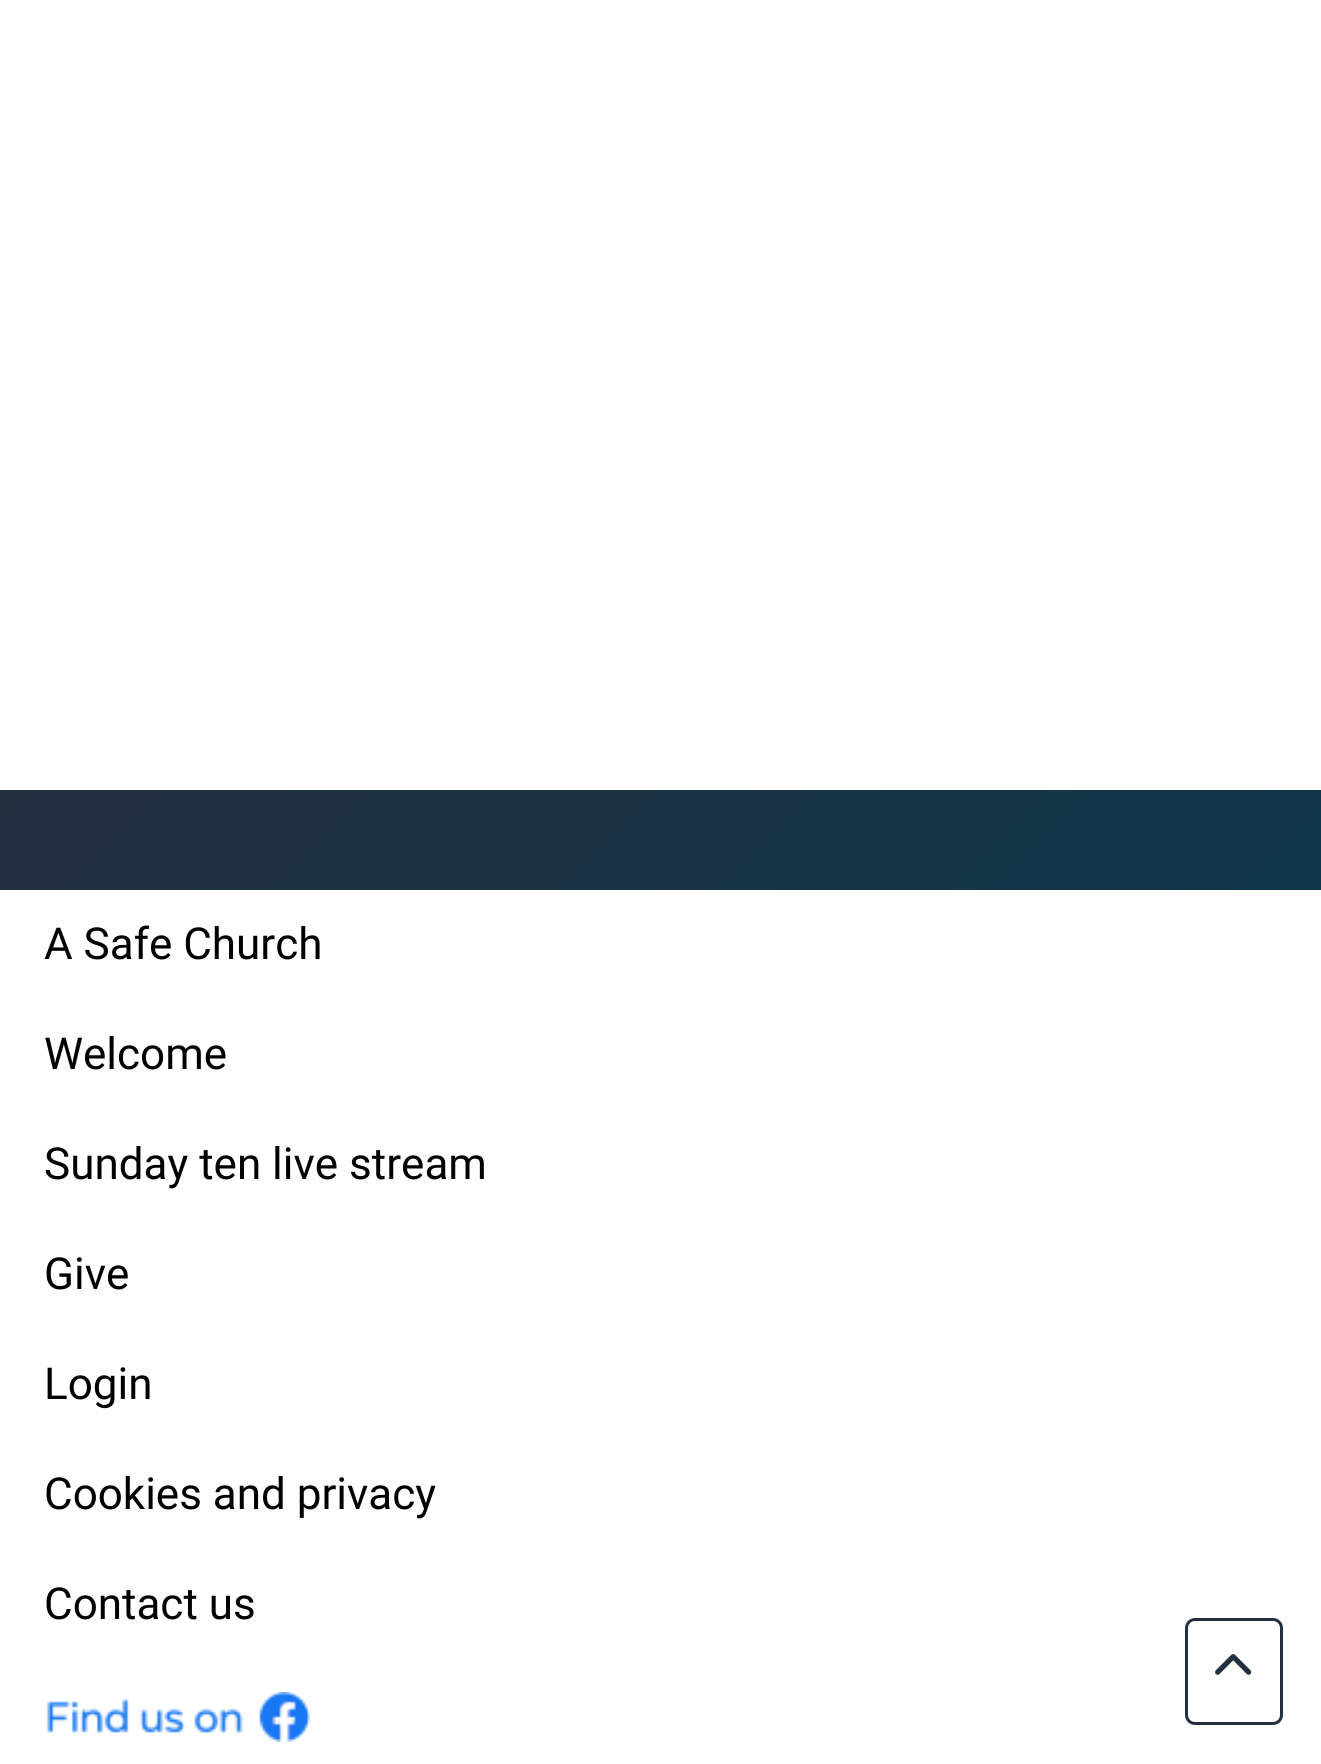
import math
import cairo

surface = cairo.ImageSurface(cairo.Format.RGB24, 1321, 1764)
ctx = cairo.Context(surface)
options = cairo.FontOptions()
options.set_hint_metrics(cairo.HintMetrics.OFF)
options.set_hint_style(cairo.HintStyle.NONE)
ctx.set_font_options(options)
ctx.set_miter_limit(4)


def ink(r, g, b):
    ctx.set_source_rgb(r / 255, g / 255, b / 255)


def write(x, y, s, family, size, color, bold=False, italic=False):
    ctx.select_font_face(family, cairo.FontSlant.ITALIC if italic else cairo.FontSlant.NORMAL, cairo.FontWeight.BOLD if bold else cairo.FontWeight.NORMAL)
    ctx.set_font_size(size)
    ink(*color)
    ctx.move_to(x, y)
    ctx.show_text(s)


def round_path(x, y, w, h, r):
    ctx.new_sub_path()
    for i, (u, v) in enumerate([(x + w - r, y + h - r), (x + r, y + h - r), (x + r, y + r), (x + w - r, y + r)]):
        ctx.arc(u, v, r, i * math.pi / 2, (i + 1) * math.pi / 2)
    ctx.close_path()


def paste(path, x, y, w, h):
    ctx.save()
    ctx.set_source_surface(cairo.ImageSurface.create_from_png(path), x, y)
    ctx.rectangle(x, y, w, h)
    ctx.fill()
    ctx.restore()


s1 = dict(family="Roboto", size=44, color=(0, 0, 0))

ink(255, 255, 255)
ctx.paint()
gradient = cairo.LinearGradient(76, 714, 1247, 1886)
gradient.add_color_stop_rgba(0, 0.141, 0.184, 0.251, 1)
gradient.add_color_stop_rgba(1, 0, 0.224, 0.314, 1)
ctx.set_source(gradient)
ctx.rectangle(0, 790, 1321, 100)
ctx.fill()
write(44, 959, "A Safe Church", **s1)
write(44, 1069, "Welcome", **s1)
write(44, 1179, "Sunday ten live stream", **s1)
write(44, 1289, "Give", **s1)
write(44, 1399, "Login", **s1)
write(44, 1509, "Cookies and privacy", **s1)
write(44, 1619, "Contact us", **s1)
paste("pic1.png", 46, 1692, 264, 50)
round_path(1186.5, 1619.5, 95, 104, 8.5)
ink(36, 47, 64)
ctx.set_line_width(3)
ctx.stroke()
paste("pic2.png", 1215, 1654, 37, 21)
surface.write_to_png("screenshot.png")
